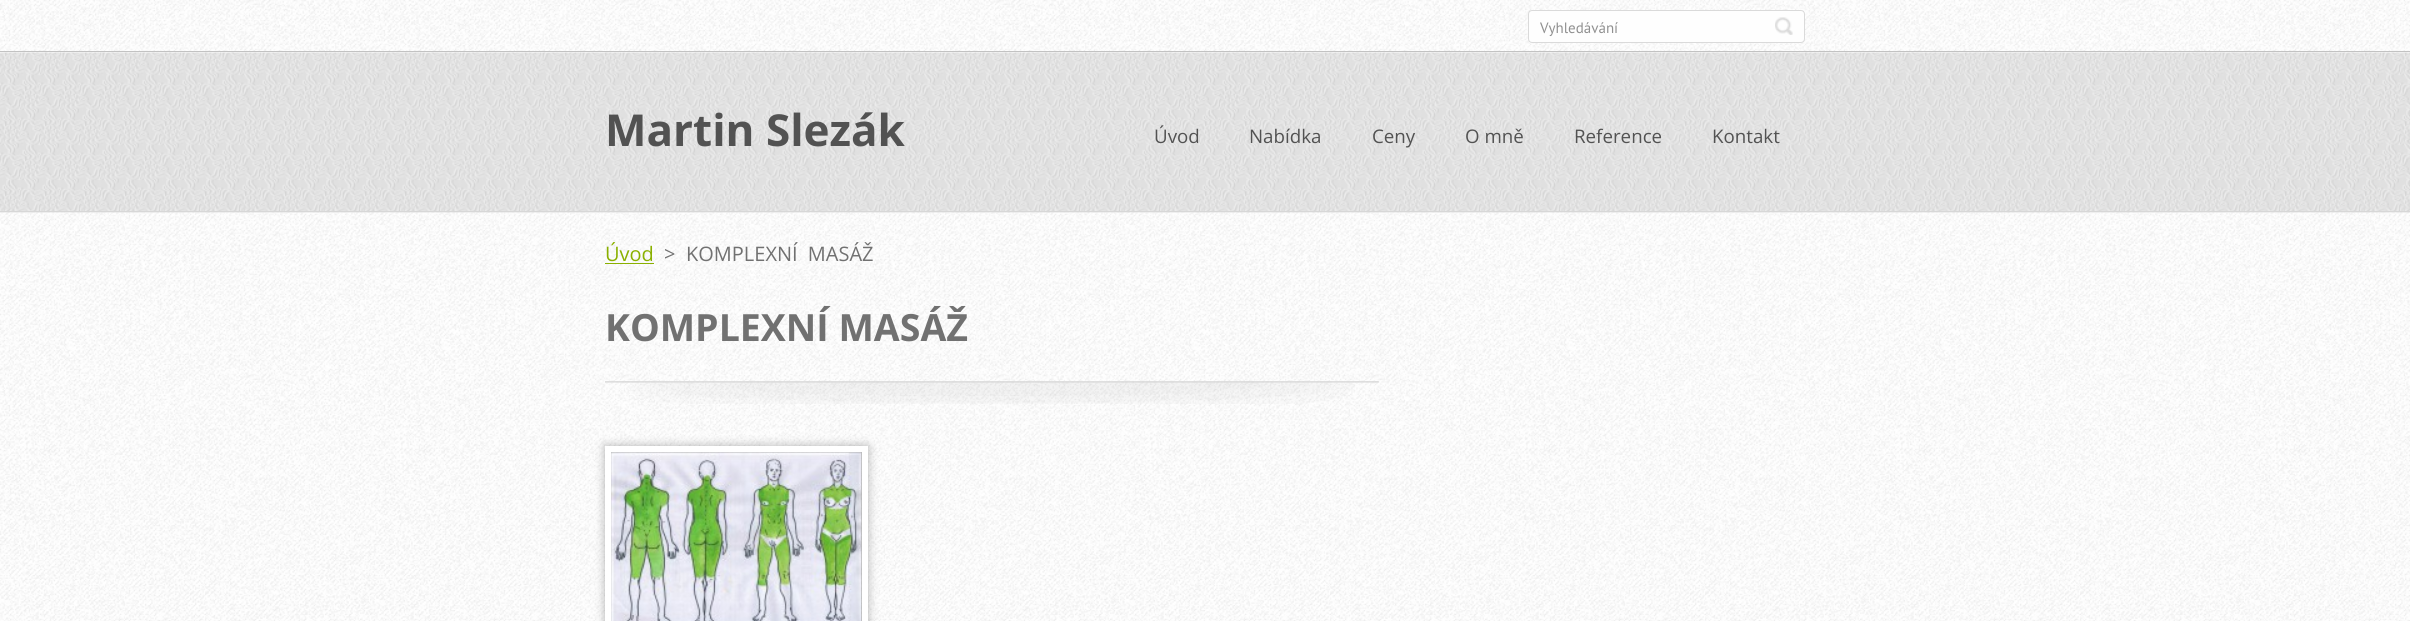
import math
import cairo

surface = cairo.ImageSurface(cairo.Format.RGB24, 2410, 621)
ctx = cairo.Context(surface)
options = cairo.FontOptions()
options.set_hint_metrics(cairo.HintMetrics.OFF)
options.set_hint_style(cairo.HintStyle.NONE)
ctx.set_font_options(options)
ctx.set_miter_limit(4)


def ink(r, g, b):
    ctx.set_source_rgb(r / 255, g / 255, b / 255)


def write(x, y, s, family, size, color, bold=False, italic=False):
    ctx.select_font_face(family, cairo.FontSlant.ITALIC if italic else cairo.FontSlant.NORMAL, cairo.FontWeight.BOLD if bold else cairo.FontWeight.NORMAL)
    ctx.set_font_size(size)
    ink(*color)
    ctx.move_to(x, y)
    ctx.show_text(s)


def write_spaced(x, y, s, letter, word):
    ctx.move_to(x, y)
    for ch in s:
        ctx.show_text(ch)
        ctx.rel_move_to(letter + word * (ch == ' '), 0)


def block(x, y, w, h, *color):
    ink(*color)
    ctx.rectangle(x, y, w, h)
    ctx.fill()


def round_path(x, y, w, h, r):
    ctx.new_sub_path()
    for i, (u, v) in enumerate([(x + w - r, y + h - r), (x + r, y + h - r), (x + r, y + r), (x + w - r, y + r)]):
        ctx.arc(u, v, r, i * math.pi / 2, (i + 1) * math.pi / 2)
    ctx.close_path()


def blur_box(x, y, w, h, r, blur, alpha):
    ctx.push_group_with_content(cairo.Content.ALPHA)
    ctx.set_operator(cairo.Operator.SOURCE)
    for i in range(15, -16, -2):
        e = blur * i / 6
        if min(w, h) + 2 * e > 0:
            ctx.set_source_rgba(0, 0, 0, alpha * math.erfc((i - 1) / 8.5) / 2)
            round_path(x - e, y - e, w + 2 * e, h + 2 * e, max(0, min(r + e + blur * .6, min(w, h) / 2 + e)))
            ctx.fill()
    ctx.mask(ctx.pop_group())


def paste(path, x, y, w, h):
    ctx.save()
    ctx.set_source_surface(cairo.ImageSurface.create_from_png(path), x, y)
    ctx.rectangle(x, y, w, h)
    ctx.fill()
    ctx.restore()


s1 = dict(family="PT Sans", size=15, color=(144, 144, 144))
s2 = dict(family="Open Sans", size=44, color=(82, 82, 82), bold=True)
s3 = dict(family="Open Sans", size=18.75, color=(82, 82, 82))
s4 = dict(family="Open Sans", size=20, color=(138, 176, 0))
s5 = dict(family="Open Sans", size=20, color=(113, 113, 113))
s6 = dict(family="Open Sans", size=37.5, color=(113, 113, 113), bold=True)

ink(255, 255, 255)
ctx.paint()
paste("pic1.png", 0, 0, 2410, 621)
ctx.save()
ctx.set_fill_rule(cairo.FillRule.EVEN_ODD)
ctx.new_path()
ctx.move_to(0, 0)
ctx.line_to(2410, 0)
ctx.line_to(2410, 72)
ctx.line_to(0, 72)
ctx.close_path()
ctx.move_to(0, 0)
ctx.line_to(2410, 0)
ctx.line_to(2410, 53)
ctx.line_to(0, 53)
ctx.close_path()
ctx.clip()
ink(0, 0, 0)
blur_box(0, 0, 2410, 53, 0, 6, 0.7)
ctx.restore()
paste("pic2.png", 0, 52, 2410, 1)
block(0, 51, 2410, 1, 194, 194, 194)
ink(254, 254, 254)
round_path(1528.5, 10.5, 276, 32, 3.5)
ctx.fill_preserve()
ink(218, 218, 218)
ctx.set_line_width(1)
ctx.stroke()
write(1540, 33, "Vyhledávání", **s1)
paste("pic3.png", 1775, 17, 18, 18)
paste("pic4.png", 0, 52, 2410, 161)
block(0, 211, 2410, 1, 215, 215, 215)
write(605, 146, "Martin Slezák", **s2)
write(1154, 143, "Úvod", **s3)
write(1249, 143, "Nabídka", **s3)
write(1372, 143, "Ceny", **s3)
write(1465, 143, "O mně", **s3)
write(1574, 143, "Reference", **s3)
write(1712, 143, "Kontakt", **s3)
write(605, 261, "Úvod", **s4)
block(605, 263, 49, 1, 138, 176, 0)
write(664, 261, ">", **s5)
write_spaced(686, 261, "KOMPLEXNÍ MASÁŽ", 0, 5)
paste("pic5.png", 605, 381, 774, 23)
write(605, 341, "KOMPLEXNÍ MASÁŽ", **s6)
ink(0, 0, 0)
blur_box(605, 446, 263, 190, 0, 5, 0.3)
ctx.rectangle(608, 449, 257, 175)
ink(255, 255, 255)
ctx.set_line_width(6)
ctx.stroke()
paste("pic6.png", 611, 452, 251, 169)
surface.write_to_png("screenshot.png")
